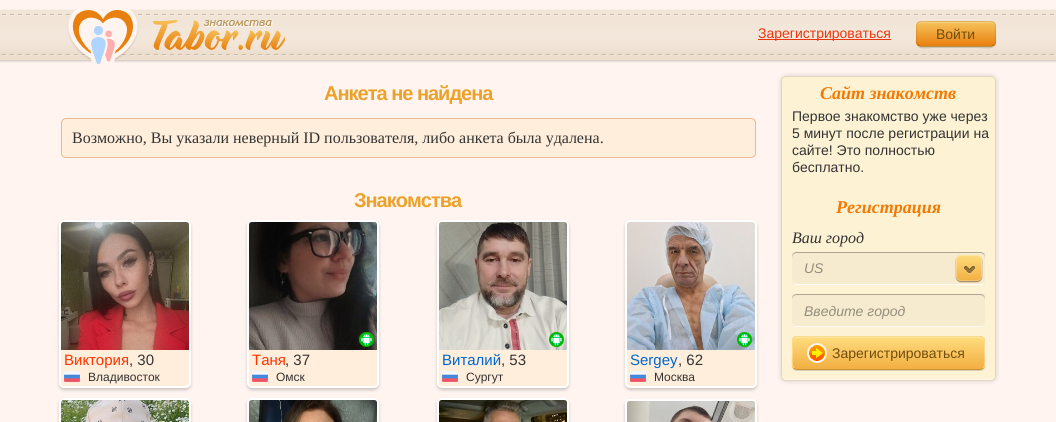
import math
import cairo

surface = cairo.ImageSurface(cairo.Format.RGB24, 1056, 422)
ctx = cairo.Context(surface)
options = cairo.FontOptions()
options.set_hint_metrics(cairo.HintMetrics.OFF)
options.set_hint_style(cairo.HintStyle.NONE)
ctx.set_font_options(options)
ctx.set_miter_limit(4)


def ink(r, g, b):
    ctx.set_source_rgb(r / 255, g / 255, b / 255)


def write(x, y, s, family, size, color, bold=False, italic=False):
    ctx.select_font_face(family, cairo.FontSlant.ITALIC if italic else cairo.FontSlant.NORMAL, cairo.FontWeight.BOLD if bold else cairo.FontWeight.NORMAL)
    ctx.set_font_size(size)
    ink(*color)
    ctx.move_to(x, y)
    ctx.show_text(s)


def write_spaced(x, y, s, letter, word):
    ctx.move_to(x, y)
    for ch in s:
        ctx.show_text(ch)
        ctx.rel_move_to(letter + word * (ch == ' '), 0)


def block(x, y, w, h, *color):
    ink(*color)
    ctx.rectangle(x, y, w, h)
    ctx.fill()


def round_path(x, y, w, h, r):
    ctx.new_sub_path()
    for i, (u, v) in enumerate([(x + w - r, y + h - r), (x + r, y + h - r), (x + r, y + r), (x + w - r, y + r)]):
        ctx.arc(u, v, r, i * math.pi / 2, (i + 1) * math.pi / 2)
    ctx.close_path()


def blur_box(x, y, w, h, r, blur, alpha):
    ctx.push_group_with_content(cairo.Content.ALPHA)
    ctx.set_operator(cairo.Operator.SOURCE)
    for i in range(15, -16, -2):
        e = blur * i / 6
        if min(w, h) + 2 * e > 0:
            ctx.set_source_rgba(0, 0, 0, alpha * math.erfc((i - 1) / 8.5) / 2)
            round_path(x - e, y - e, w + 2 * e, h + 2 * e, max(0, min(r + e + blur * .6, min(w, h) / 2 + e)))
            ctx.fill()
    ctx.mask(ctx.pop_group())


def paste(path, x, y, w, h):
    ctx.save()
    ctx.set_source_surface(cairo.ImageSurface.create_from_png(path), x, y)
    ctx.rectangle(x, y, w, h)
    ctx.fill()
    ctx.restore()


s1 = dict(family="Liberation Sans", size=14, color=(232, 56, 15))
s2 = dict(family="Liberation Sans", size=14, color=(115, 77, 12))
s3 = dict(family="Liberation Serif", size=16, color=(51, 51, 51))
s4 = dict(family="Liberation Sans", size=15, color=(255, 51, 0))
s5 = dict(family="Liberation Sans", size=15, color=(51, 51, 51))
s6 = dict(family="Liberation Sans", size=12, color=(51, 51, 51))
s7 = dict(family="Liberation Sans", size=15, color=(0, 102, 204))
s8 = dict(family="Liberation Serif", size=18, color=(244, 121, 0), bold=True, italic=True)
s9 = dict(family="Liberation Sans", size=14, color=(51, 51, 51))
s10 = dict(family="Liberation Serif", size=16, color=(51, 51, 51), italic=True)
s11 = dict(family="Liberation Sans", size=14, color=(148, 141, 126), italic=True)

ink(255, 244, 240)
ctx.paint()
paste("pic1.png", 0, 9, 1056, 54)
paste("pic2.png", 67, 9, 218, 56)
block(758, 39, 133, 1, 232, 56, 15)
write(758, 38, "Зарегистрироваться", **s1)
ink(204, 193, 181)
ctx.new_path()
ctx.move_to(916, 42)
ctx.curve_to(916, 51, 927, 48, 933, 48)
ctx.line_to(979, 48)
ctx.curve_to(985, 48, 996, 51, 996, 42)
ctx.curve_to(996, 45, 994, 47, 991, 47)
ctx.line_to(921, 47)
ctx.curve_to(918, 47, 916, 45, 916, 42)
ctx.close_path()
ctx.fill()
ink(246, 194, 91)
round_path(916, 21, 80, 26, 5)
ctx.fill()
ctx.save()
round_path(916, 21, 80, 26, 5)
ctx.clip()
gradient = cairo.LinearGradient(956, 22, 956, 46)
gradient.add_color_stop_rgba(0, 0.965, 0.761, 0.357, 1)
gradient.add_color_stop_rgba(1, 0.91, 0.502, 0.059, 1)
ctx.set_source(gradient)
ctx.rectangle(916, 22, 80, 24)
ctx.fill()
ctx.restore()
ctx.set_source_rgba(1, 1, 1, 0.25)
ctx.new_path()
ctx.move_to(921, 23)
ctx.line_to(991, 23)
ctx.curve_to(993, 23, 995, 25, 995, 27)
ctx.curve_to(995, 19, 984, 22, 979, 22)
ctx.line_to(933, 22)
ctx.curve_to(928, 22, 917, 19, 917, 27)
ctx.curve_to(917, 25, 919, 23, 921, 23)
ctx.close_path()
ctx.fill()
ctx.new_path()
ctx.move_to(994, 45)
ctx.line_to(991.5, 46.5)
ctx.line_to(920.5, 46.5)
ctx.line_to(918, 45)
ctx.set_source_rgba(0, 0, 0, 0.25)
ctx.set_line_width(1)
ctx.stroke()
ctx.new_path()
ctx.move_to(918, 45)
ctx.curve_to(915.5, 43, 916.5, 39.5, 916.5, 36.5)
ctx.curve_to(916.5, 20, 915, 21.5, 932.5, 21.5)
ctx.line_to(979.5, 21.5)
ctx.curve_to(997, 21.5, 995.5, 20, 995.5, 36.5)
ctx.curve_to(995.5, 39.5, 996.5, 43, 994, 45)
ctx.set_source_rgba(0, 0, 0, 0.1)
ctx.stroke()
write(936, 39, "Войти", **s2)
ctx.select_font_face("Liberation Sans", cairo.FontSlant.NORMAL, cairo.FontWeight.BOLD)
ctx.set_font_size(20)
ink(236, 162, 42)
write_spaced(324, 100, "Анкета не найдена", -1, 0)
ink(255, 238, 219)
round_path(61.5, 118.5, 694, 39, 4.5)
ctx.fill_preserve()
ink(232, 185, 146)
ctx.stroke()
write(72, 143, "Возможно, Вы указали неверный ID пользователя, либо анкета была удалена.", **s3)
ctx.select_font_face("Liberation Sans", cairo.FontSlant.NORMAL, cairo.FontWeight.BOLD)
ctx.set_font_size(20)
ink(236, 162, 42)
write_spaced(354, 207, "Знакомства", -1, 0)
ink(0, 0, 0)
blur_box(59, 222, 132, 168, 5, 1.5, 0.2)
ink(255, 238, 219)
round_path(60, 221, 130, 166, 4)
ctx.fill_preserve()
ink(255, 255, 255)
ctx.set_line_width(2)
ctx.stroke()
paste("pic3.png", 61, 222, 128, 128)
write(64, 365, "Виктория", **s4)
write(129, 365, ", 30", **s5)
paste("pic4.png", 64, 371, 16, 11)
write(88, 381, "Владивосток", **s6)
ink(0, 0, 0)
blur_box(247, 222, 132, 168, 5, 1.5, 0.2)
ink(255, 238, 219)
round_path(248, 221, 130, 166, 4)
ctx.fill_preserve()
ink(255, 255, 255)
ctx.stroke()
paste("pic5.png", 249, 222, 128, 128)
paste("pic6.png", 359, 332, 15, 15)
write(252, 365, "Таня", **s4)
write(285, 365, ", 37", **s5)
paste("pic4.png", 252, 371, 16, 11)
write(276, 381, "Омск", **s6)
ink(0, 0, 0)
blur_box(59, 400, 132, 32, 5, 1.5, 0.2)
round_path(60, 399, 130, 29, 4)
ink(255, 255, 255)
ctx.stroke()
paste("pic7.png", 61, 400, 128, 22)
ink(0, 0, 0)
blur_box(247, 400, 132, 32, 5, 1.5, 0.2)
round_path(248, 399, 130, 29, 4)
ink(255, 255, 255)
ctx.stroke()
paste("pic8.png", 249, 400, 128, 22)
ink(0, 0, 0)
blur_box(437, 222, 132, 168, 5, 1.5, 0.2)
ink(255, 238, 219)
round_path(438, 221, 130, 166, 4)
ctx.fill_preserve()
ink(255, 255, 255)
ctx.stroke()
paste("pic9.png", 439, 222, 128, 128)
paste("pic10.png", 549, 332, 15, 15)
write(442, 365, "Виталий", **s7)
write(501, 365, ", 53", **s5)
paste("pic4.png", 442, 371, 16, 11)
write(466, 381, "Сургут", **s6)
ink(0, 0, 0)
blur_box(625, 222, 132, 168, 5, 1.5, 0.2)
ink(255, 238, 219)
round_path(626, 221, 130, 166, 4)
ctx.fill_preserve()
ink(255, 255, 255)
ctx.stroke()
paste("pic11.png", 627, 222, 128, 128)
paste("pic12.png", 737, 332, 15, 15)
write(630, 365, "Sergey", **s7)
write(678, 365, ", 62", **s5)
paste("pic4.png", 630, 371, 16, 11)
write(654, 381, "Москва", **s6)
ink(0, 0, 0)
blur_box(437, 400, 132, 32, 5, 1.5, 0.2)
round_path(438, 399, 130, 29, 4)
ink(255, 255, 255)
ctx.stroke()
paste("pic13.png", 439, 400, 128, 22)
ink(0, 0, 0)
blur_box(625, 401, 132, 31, 5, 1.5, 0.2)
round_path(626, 400, 130, 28, 4)
ink(255, 255, 255)
ctx.stroke()
paste("pic14.png", 627, 401, 128, 21)
ink(0, 0, 0)
blur_box(781, 76, 215, 305, 5, 2.5, 0.15)
ink(253, 242, 212)
round_path(781, 76, 215, 305, 5)
ctx.fill()
ink(254, 249, 234)
ctx.new_path()
ctx.move_to(782, 375)
ctx.line_to(782, 376)
ctx.curve_to(782, 378, 784, 380, 786, 380)
ctx.line_to(991, 380)
ctx.curve_to(993, 380, 995, 378, 995, 376)
ctx.line_to(995, 375)
ctx.curve_to(995, 377, 993, 379, 991, 379)
ctx.line_to(786, 379)
ctx.curve_to(784, 379, 782, 377, 782, 375)
ctx.close_path()
ctx.fill()
round_path(781.5, 76.5, 214, 304, 4.5)
ink(228, 213, 190)
ctx.set_line_width(1)
ctx.stroke()
write(820, 99, "Сайт знакомств", **s8)
write(792, 121, "Первое знакомство уже через", **s9)
write(792, 138, "5 минут после регистрации на", **s9)
write(792, 155, "сайте! Это полностью", **s9)
write(792, 172, "бесплатно.", **s9)
write(836, 213, "Регистрация", **s8)
write(792, 243, "Ваш город", **s10)
ink(255, 252, 246)
ctx.new_path()
ctx.move_to(792, 279)
ctx.line_to(792, 280)
ctx.curve_to(792, 283, 794, 285, 797, 285)
ctx.line_to(980, 285)
ctx.curve_to(983, 285, 985, 283, 985, 280)
ctx.line_to(985, 279)
ctx.curve_to(985, 282, 983, 284, 980, 284)
ctx.line_to(797, 284)
ctx.curve_to(794, 284, 792, 282, 792, 279)
ctx.close_path()
ctx.fill()
ctx.set_source_rgba(0, 0, 0, 0.03)
ctx.rectangle(792, 252, 193, 32)
ctx.fill()
ctx.set_source_rgba(0, 0, 0, 0.3)
ctx.new_path()
ctx.move_to(797, 253)
ctx.line_to(980, 253)
ctx.curve_to(983, 253, 985, 255, 985, 258)
ctx.line_to(985, 257)
ctx.curve_to(985, 254, 983, 252, 980, 252)
ctx.line_to(797, 252)
ctx.curve_to(794, 252, 792, 254, 792, 257)
ctx.line_to(792, 258)
ctx.curve_to(792, 255, 794, 253, 797, 253)
ctx.close_path()
ctx.fill()
write(804, 273, "US", **s11)
ink(125, 97, 51)
blur_box(956, 256, 26, 26, 5, 0.5, 0.75)
gradient = cairo.LinearGradient(969, 255, 969, 281)
gradient.add_color_stop_rgba(0, 1, 0.863, 0.494, 1)
gradient.add_color_stop_rgba(1, 0.949, 0.686, 0.259, 1)
ctx.set_source(gradient)
round_path(956, 255, 26, 26, 5)
ctx.fill()
round_path(956.5, 255.5, 25, 25, 4.5)
ctx.set_source_rgba(1, 1, 1, 0.25)
ctx.stroke()
paste("pic15.png", 964, 266, 11, 8)
ink(255, 252, 246)
ctx.new_path()
ctx.move_to(792, 321)
ctx.line_to(792, 322)
ctx.curve_to(792, 325, 794, 327, 797, 327)
ctx.line_to(980, 327)
ctx.curve_to(983, 327, 985, 325, 985, 322)
ctx.line_to(985, 321)
ctx.curve_to(985, 324, 983, 326, 980, 326)
ctx.line_to(797, 326)
ctx.curve_to(794, 326, 792, 324, 792, 321)
ctx.close_path()
ctx.fill()
ctx.set_source_rgba(0, 0, 0, 0.03)
ctx.rectangle(792, 294, 193, 32)
ctx.fill()
ctx.set_source_rgba(0, 0, 0, 0.3)
ctx.new_path()
ctx.move_to(797, 295)
ctx.line_to(980, 295)
ctx.curve_to(983, 295, 985, 297, 985, 300)
ctx.line_to(985, 299)
ctx.curve_to(985, 296, 983, 294, 980, 294)
ctx.line_to(797, 294)
ctx.curve_to(794, 294, 792, 296, 792, 299)
ctx.line_to(792, 300)
ctx.curve_to(792, 297, 794, 295, 797, 295)
ctx.close_path()
ctx.fill()
write(804, 316, "Введите город", **s11)
ink(215, 206, 180)
ctx.new_path()
ctx.move_to(792, 365)
ctx.line_to(792, 366)
ctx.curve_to(792, 369, 794, 371, 797, 371)
ctx.line_to(980, 371)
ctx.curve_to(983, 371, 985, 369, 985, 366)
ctx.line_to(985, 365)
ctx.curve_to(985, 368, 983, 370, 980, 370)
ctx.line_to(797, 370)
ctx.curve_to(794, 370, 792, 368, 792, 365)
ctx.close_path()
ctx.fill()
ink(242, 175, 66)
round_path(792, 336, 193, 34, 5)
ctx.fill()
ctx.save()
round_path(792, 336, 193, 34, 5)
ctx.clip()
gradient = cairo.LinearGradient(889, 337, 889, 369)
gradient.add_color_stop_rgba(0, 1, 0.863, 0.494, 1)
gradient.add_color_stop_rgba(1, 0.949, 0.686, 0.259, 1)
ctx.set_source(gradient)
ctx.rectangle(792, 337, 193, 32)
ctx.fill()
ctx.restore()
ctx.set_source_rgba(1, 1, 1, 0.25)
ctx.new_path()
ctx.move_to(797, 338)
ctx.line_to(980, 338)
ctx.curve_to(982, 338, 984, 340, 984, 342)
ctx.curve_to(984, 339, 983, 337, 980, 337)
ctx.line_to(796, 337)
ctx.curve_to(794, 338, 793, 340, 793, 342)
ctx.curve_to(793, 340, 795, 338, 797, 338)
ctx.close_path()
ctx.fill()
ctx.new_path()
ctx.move_to(983, 368)
ctx.curve_to(982.5, 369, 981, 369.5, 980, 369.5)
ctx.line_to(797, 369.5)
ctx.curve_to(796, 369.5, 794.5, 369, 794, 368)
ctx.set_source_rgba(0, 0, 0, 0.15)
ctx.stroke()
ctx.new_path()
ctx.move_to(794, 368)
ctx.curve_to(791, 365.5, 792.5, 356.5, 792.5, 353)
ctx.line_to(792.5, 345)
ctx.curve_to(792.5, 341.5, 792, 336.5, 797, 336.5)
ctx.line_to(980, 336.5)
ctx.curve_to(985, 336.5, 984.5, 341.5, 984.5, 345)
ctx.line_to(984.5, 353)
ctx.curve_to(984.5, 356.5, 986, 365.5, 983, 368)
ink(251, 217, 143)
ctx.stroke()
paste("pic16.png", 807, 343, 20, 20)
write(832, 358, "Зарегистрироваться", **s2)
surface.write_to_png("screenshot.png")
